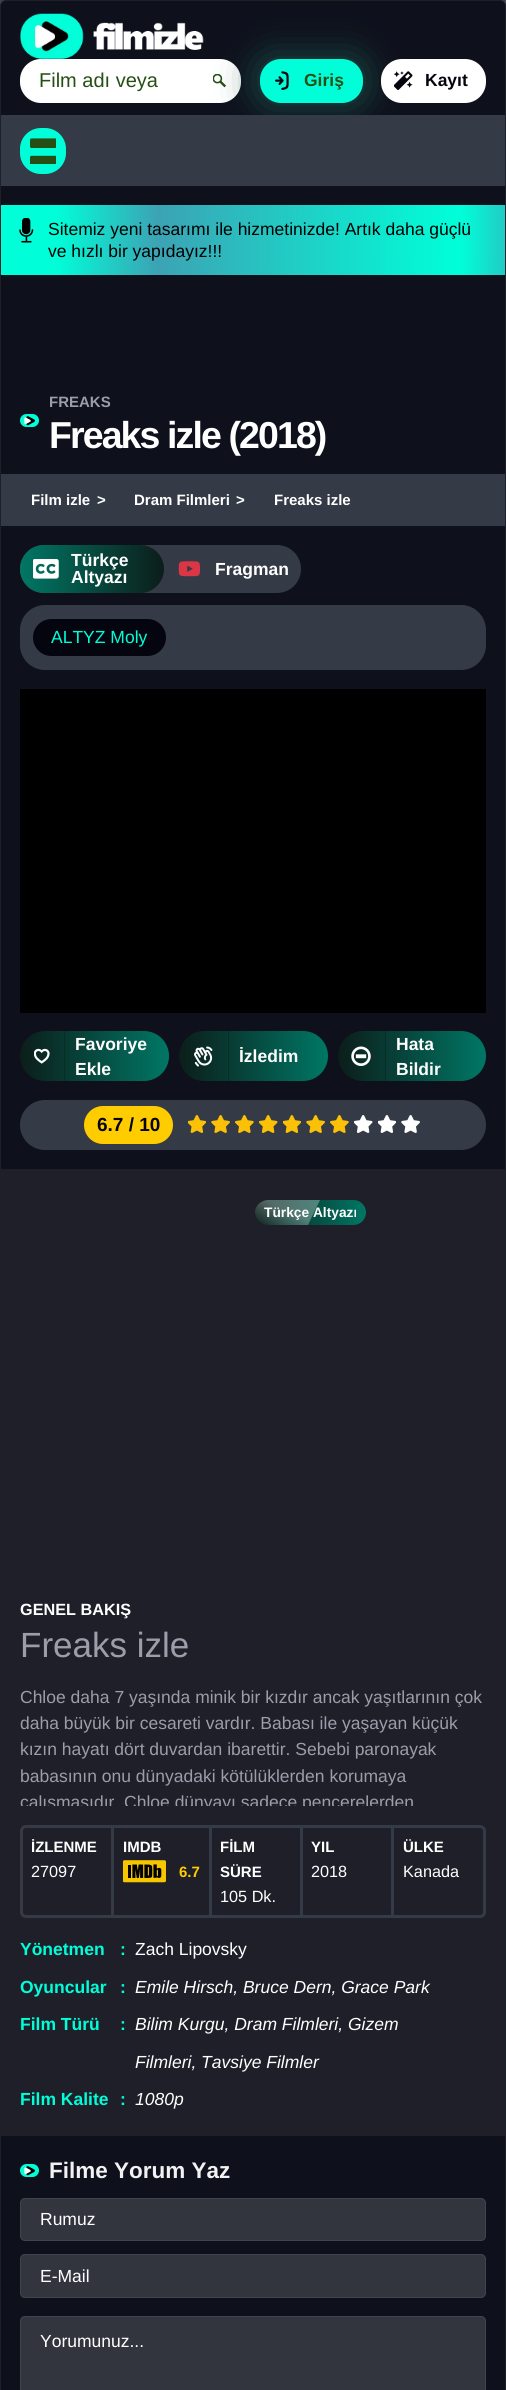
import math
import cairo

surface = cairo.ImageSurface(cairo.Format.RGB24, 506, 2390)
ctx = cairo.Context(surface)
options = cairo.FontOptions()
options.set_hint_metrics(cairo.HintMetrics.OFF)
options.set_hint_style(cairo.HintStyle.NONE)
ctx.set_font_options(options)
ctx.set_miter_limit(4)


def ink(r, g, b):
    ctx.set_source_rgb(r / 255, g / 255, b / 255)


def write(x, y, s, family, size, color, bold=False, italic=False):
    ctx.select_font_face(family, cairo.FontSlant.ITALIC if italic else cairo.FontSlant.NORMAL, cairo.FontWeight.BOLD if bold else cairo.FontWeight.NORMAL)
    ctx.set_font_size(size)
    ink(*color)
    ctx.move_to(x, y)
    ctx.show_text(s)


def write_spaced(x, y, s, letter, word):
    ctx.move_to(x, y)
    for ch in s:
        ctx.show_text(ch)
        ctx.rel_move_to(letter + word * (ch == ' '), 0)


def block(x, y, w, h, *color):
    ink(*color)
    ctx.rectangle(x, y, w, h)
    ctx.fill()


def round_path(x, y, w, h, r):
    ctx.new_sub_path()
    for i, (u, v) in enumerate([(x + w - r, y + h - r), (x + r, y + h - r), (x + r, y + r), (x + w - r, y + r)]):
        ctx.arc(u, v, r, i * math.pi / 2, (i + 1) * math.pi / 2)
    ctx.close_path()


def blur_box(x, y, w, h, r, blur, alpha):
    ctx.push_group_with_content(cairo.Content.ALPHA)
    ctx.set_operator(cairo.Operator.SOURCE)
    for i in range(15, -16, -2):
        e = blur * i / 6
        if min(w, h) + 2 * e > 0:
            ctx.set_source_rgba(0, 0, 0, alpha * math.erfc((i - 1) / 8.5) / 2)
            round_path(x - e, y - e, w + 2 * e, h + 2 * e, max(0, min(r + e + blur * .6, min(w, h) / 2 + e)))
            ctx.fill()
    ctx.mask(ctx.pop_group())


def paste(path, x, y, w, h):
    ctx.save()
    ctx.set_source_surface(cairo.ImageSurface.create_from_png(path), x, y)
    ctx.rectangle(x, y, w, h)
    ctx.fill()
    ctx.restore()


s1 = dict(family="Liberation Sans", size=20, color=(38, 79, 20))
s2 = dict(family="Liberation Sans", size=17.5, color=(38, 79, 20), bold=True)
s3 = dict(family="Liberation Sans", size=17.5, color=(5, 5, 15), bold=True)
s4 = dict(family="Liberation Sans", size=17.5, color=(0, 0, 0))
s5 = dict(family="Liberation Sans", size=15, color=(155, 157, 171), bold=True)
s6 = dict(family="Liberation Sans", size=15, color=(255, 255, 255), bold=True)
s7 = dict(family="Liberation Sans", size=17.5, color=(255, 255, 255), bold=True)
s8 = dict(family="Liberation Sans", size=17.5, color=(0, 255, 217))
s9 = dict(family="Liberation Sans", size=19, color=(5, 5, 15), bold=True)
s10 = dict(family="Liberation Sans", size=13.75, color=(255, 255, 255), bold=True)
s11 = dict(family="Liberation Sans", size=16.25, color=(255, 255, 255), bold=True)
s12 = dict(family="Liberation Sans", size=35, color=(155, 157, 171))
s13 = dict(family="Liberation Sans", size=17.5, color=(155, 157, 171))
s14 = dict(family="Liberation Sans", size=16.25, color=(255, 255, 255))
s15 = dict(family="Liberation Sans", size=15, color=(255, 204, 0), bold=True)
s16 = dict(family="Liberation Sans", size=17.5, color=(0, 255, 217), bold=True)
s17 = dict(family="Liberation Sans", size=17.5, color=(255, 255, 255))
s18 = dict(family="Liberation Sans", size=17.5, color=(255, 255, 255), italic=True)
s19 = dict(family="Liberation Sans", size=22.5, color=(242, 242, 242), bold=True)

ink(62, 65, 79)
ctx.paint()
paste("pic1.png", 1, 0, 505, 6)
ink(14, 16, 28)
round_path(0.5, 0.5, 505, 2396, 5.5)
ctx.fill_preserve()
ink(30, 32, 41)
ctx.set_line_width(1)
ctx.stroke()
paste("pic2.png", 20, 13, 184, 46)
ink(255, 255, 255)
round_path(20, 59, 221, 44, 21)
ctx.fill()
write(39, 87, "Film adı veya", **s1)
paste("pic3.png", 213, 74, 13, 14)
ink(24, 82, 72)
blur_box(260, 59, 103, 44, 21, 19, 1)
ink(0, 255, 217)
round_path(260, 59, 103, 44, 21)
ctx.fill()
paste("pic4.png", 275, 71, 14, 19)
write(304, 86, "Giriş", **s2)
ink(255, 255, 255)
round_path(381, 59, 105, 44, 21)
ctx.fill()
paste("pic5.png", 394, 71, 19, 19)
write(425, 86, "Kayıt", **s3)
block(1, 115, 504, 71, 52, 58, 70)
ink(0, 255, 217)
round_path(20, 128, 46, 46, 21)
ctx.fill()
paste("pic6.png", 30, 138, 26, 26)
gradient = cairo.LinearGradient(0.9, 238, 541, 243)
gradient.add_color_stop_rgba(0.1, 0, 1, 0.851, 1)
gradient.add_color_stop_rgba(0.29, 0.235, 0.639, 0.706, 1)
gradient.add_color_stop_rgba(0.85, 0, 1, 0.851, 1)
gradient.add_color_stop_rgba(1, 0.235, 0.639, 0.706, 1)
ctx.set_source(gradient)
ctx.rectangle(1, 205, 504, 70)
ctx.fill()
paste("pic7.png", 19, 218, 15, 25)
write(48, 235, "Sitemiz yeni tasarımı ile hizmetinizde! Artık daha güçlü", **s4)
write(48, 257, "ve hızlı bir yapıdayız!!!", **s4)
paste("pic8.png", 20, 414, 19, 13)
write(49, 407, "FREAKS", **s5)
ctx.set_font_size(37.5)
ink(255, 255, 255)
write_spaced(49, 448, "Freaks izle (2018)", -1.9, 0)
block(1, 474, 504, 52, 52, 58, 70)
write(31, 505, "Film izle", **s6)
write(97, 505, ">", **s6)
write(134, 505, "Dram Filmleri", **s6)
write(236, 505, ">", **s6)
write(274, 505, "Freaks izle", **s6)
ink(52, 58, 70)
round_path(20, 545, 281, 48, 24)
ctx.fill()
gradient = cairo.LinearGradient(164, 569, 20, 569)
gradient.add_color_stop_rgba(0, 0.047, 0.114, 0.102, 1)
gradient.add_color_stop_rgba(1, 0, 0.467, 0.396, 1)
ctx.set_source(gradient)
round_path(20, 545, 144, 48, 24)
ctx.fill()
paste("pic9.png", 33, 559, 26, 20)
write(71, 566, "Türkçe", **s7)
write(71, 583, "Altyazı", **s7)
paste("pic10.png", 178, 561, 23, 16)
write(215, 575, "Fragman", **s7)
ink(52, 58, 70)
round_path(20, 605, 466, 65, 25)
ctx.fill()
ink(5, 5, 15)
round_path(33, 619, 133, 37, 18.5)
ctx.fill()
write(51, 643, "ALTYZ Moly", **s8)
block(20, 689, 466, 324, 0, 0, 0)
gradient = cairo.LinearGradient(20, 1056, 169, 1056)
gradient.add_color_stop_rgba(0, 0.047, 0.114, 0.102, 1)
gradient.add_color_stop_rgba(1, 0, 0.467, 0.396, 1)
ctx.set_source(gradient)
round_path(20, 1031, 149, 50, 25)
ctx.fill()
block(64, 1031, 1, 50, 6, 45, 38)
paste("pic11.png", 34, 1048, 16, 16)
write(75, 1050, "Favoriye", **s7)
write(75, 1075, "Ekle", **s7)
gradient = cairo.LinearGradient(179, 1056, 328, 1056)
gradient.add_color_stop_rgba(0, 0.047, 0.114, 0.102, 1)
gradient.add_color_stop_rgba(1, 0, 0.467, 0.396, 1)
ctx.set_source(gradient)
round_path(179, 1031, 149, 50, 25)
ctx.fill()
block(228, 1031, 1, 50, 6, 47, 41)
paste("pic12.png", 194, 1046, 19, 21)
write(239, 1062, "İzledim", **s7)
gradient = cairo.LinearGradient(338, 1056, 486, 1056)
gradient.add_color_stop_rgba(0, 0.047, 0.114, 0.102, 1)
gradient.add_color_stop_rgba(1, 0, 0.467, 0.396, 1)
ctx.set_source(gradient)
round_path(338, 1031, 148, 50, 25)
ctx.fill()
block(385, 1031, 1, 50, 6, 46, 40)
paste("pic13.png", 351, 1046, 20, 20)
write(396, 1050, "Hata", **s7)
write(396, 1075, "Bildir", **s7)
ink(52, 58, 70)
round_path(20, 1100, 466, 50, 25)
ctx.fill()
ink(255, 204, 0)
round_path(84, 1106, 89, 38, 19)
ctx.fill()
write(97, 1131, "6.7 / 10", **s9)
paste("pic14.png", 188, 1115, 18, 18)
paste("pic15.png", 211, 1115, 19, 18)
paste("pic16.png", 235, 1115, 19, 18)
paste("pic17.png", 259, 1115, 19, 18)
paste("pic14.png", 283, 1115, 18, 18)
paste("pic15.png", 306, 1115, 19, 18)
paste("pic16.png", 330, 1115, 19, 18)
paste("pic18.png", 354, 1115, 19, 18)
paste("pic19.png", 378, 1115, 18, 18)
paste("pic20.png", 401, 1115, 19, 18)
block(1, 1169, 504, 967, 30, 31, 40)
gradient = cairo.LinearGradient(255, 1213, 366, 1213)
gradient.add_color_stop_rgba(0, 0.047, 0.114, 0.102, 1)
gradient.add_color_stop_rgba(1, 0, 0.467, 0.396, 1)
ctx.set_source(gradient)
round_path(255, 1200, 111, 25, 12.5)
ctx.fill()
write(264, 1217, "Türkçe Altyazı", **s10)
gradient = cairo.LinearGradient(264, 1200, 252, 1225)
gradient.add_color_stop_rgba(0, 1, 1, 1, 0.3)
gradient.add_color_stop_rgba(1, 1, 1, 1, 0)
ctx.set_source(gradient)
ctx.new_path()
ctx.move_to(268, 1200)
ctx.curve_to(261, 1200, 255, 1206, 255, 1212)
ctx.curve_to(255, 1219, 261, 1225, 268, 1225)
ctx.line_to(308, 1225)
ctx.line_to(320, 1200)
ctx.close_path()
ctx.fill()
write(20, 1615, "GENEL BAKIŞ", **s11)
write(20, 1657, "Freaks izle", **s12)
write(20, 1703, "Chloe daha 7 yaşında minik bir kızdır ancak yaşıtlarının çok", **s13)
write(20, 1729, "daha büyük bir cesareti vardır. Babası ile yaşayan küçük", **s13)
write(20, 1755, "kızın hayatı dört duvardan ibarettir. Sebebi paronayak", **s13)
write(20, 1782, "babasının onu dünyadaki kötülüklerden korumaya", **s13)
ctx.save()
ctx.rectangle(20, 1631, 466, 175)
ctx.clip()
write(20, 1808, "çalışmasıdır. Chloe dünyayı sadece pencerelerden", **s13)
ctx.restore()
round_path(21.5, 1826.5, 463, 90, 4.5)
ink(52, 58, 70)
ctx.set_line_width(3)
ctx.stroke()
block(111, 1828, 3, 87, 52, 58, 70)
write(31, 1852, "İZLENME", **s6)
write(31, 1877, "27097", **s14)
block(209, 1828, 3, 87, 52, 58, 70)
write(123, 1852, "IMDB", **s6)
paste("pic21.png", 123, 1860, 43, 23)
write(179, 1877, "6.7", **s15)
block(300, 1828, 3, 87, 52, 58, 70)
write(220, 1852, "FİLM", **s6)
write(220, 1877, "SÜRE", **s6)
write(220, 1902, "105 Dk.", **s14)
block(391, 1828, 3, 87, 52, 58, 70)
write(311, 1852, "YIL", **s6)
write(311, 1877, "2018", **s14)
write(403, 1852, "ÜLKE", **s6)
write(403, 1877, "Kanada", **s14)
write(20, 1955, "Yönetmen", **s16)
write(120, 1955, ":", **s16)
write(135, 1955, "Zach Lipovsky", **s17)
write(20, 1993, "Oyuncular", **s16)
write(120, 1993, ":", **s16)
write(135, 1993, "Emile Hirsch, Bruce Dern, Grace Park", **s18)
write(20, 2030, "Film Türü", **s16)
write(120, 2030, ":", **s16)
write(135, 2030, "Bilim Kurgu, Dram Filmleri, Gizem", **s18)
write(135, 2068, "Filmleri, Tavsiye Filmler", **s18)
write(20, 2105, "Film Kalite", **s16)
write(120, 2105, ":", **s16)
write(135, 2105, "1080p", **s18)
paste("pic8.png", 20, 2164, 19, 13)
write(49, 2178, "Filme Yorum Yaz", **s19)
ink(50, 52, 62)
round_path(20, 2198, 466, 43, 5)
ctx.fill()
round_path(20.5, 2198.5, 465, 42, 4.5)
ctx.set_source_rgba(1, 1, 1, 0.08)
ctx.set_line_width(1)
ctx.stroke()
write(40, 2225, "Rumuz", **s17)
ink(50, 52, 62)
round_path(20, 2254, 466, 44, 5)
ctx.fill()
round_path(20.5, 2254.5, 465, 43, 4.5)
ctx.set_source_rgba(1, 1, 1, 0.08)
ctx.stroke()
write(40, 2282, "E-Mail", **s17)
ink(50, 52, 62)
round_path(20, 2316, 466, 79, 5)
ctx.fill()
round_path(20.5, 2316.5, 465, 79, 4.5)
ctx.set_source_rgba(1, 1, 1, 0.08)
ctx.stroke()
write(40, 2347, "Yorumunuz...", **s17)
surface.write_to_png("screenshot.png")
